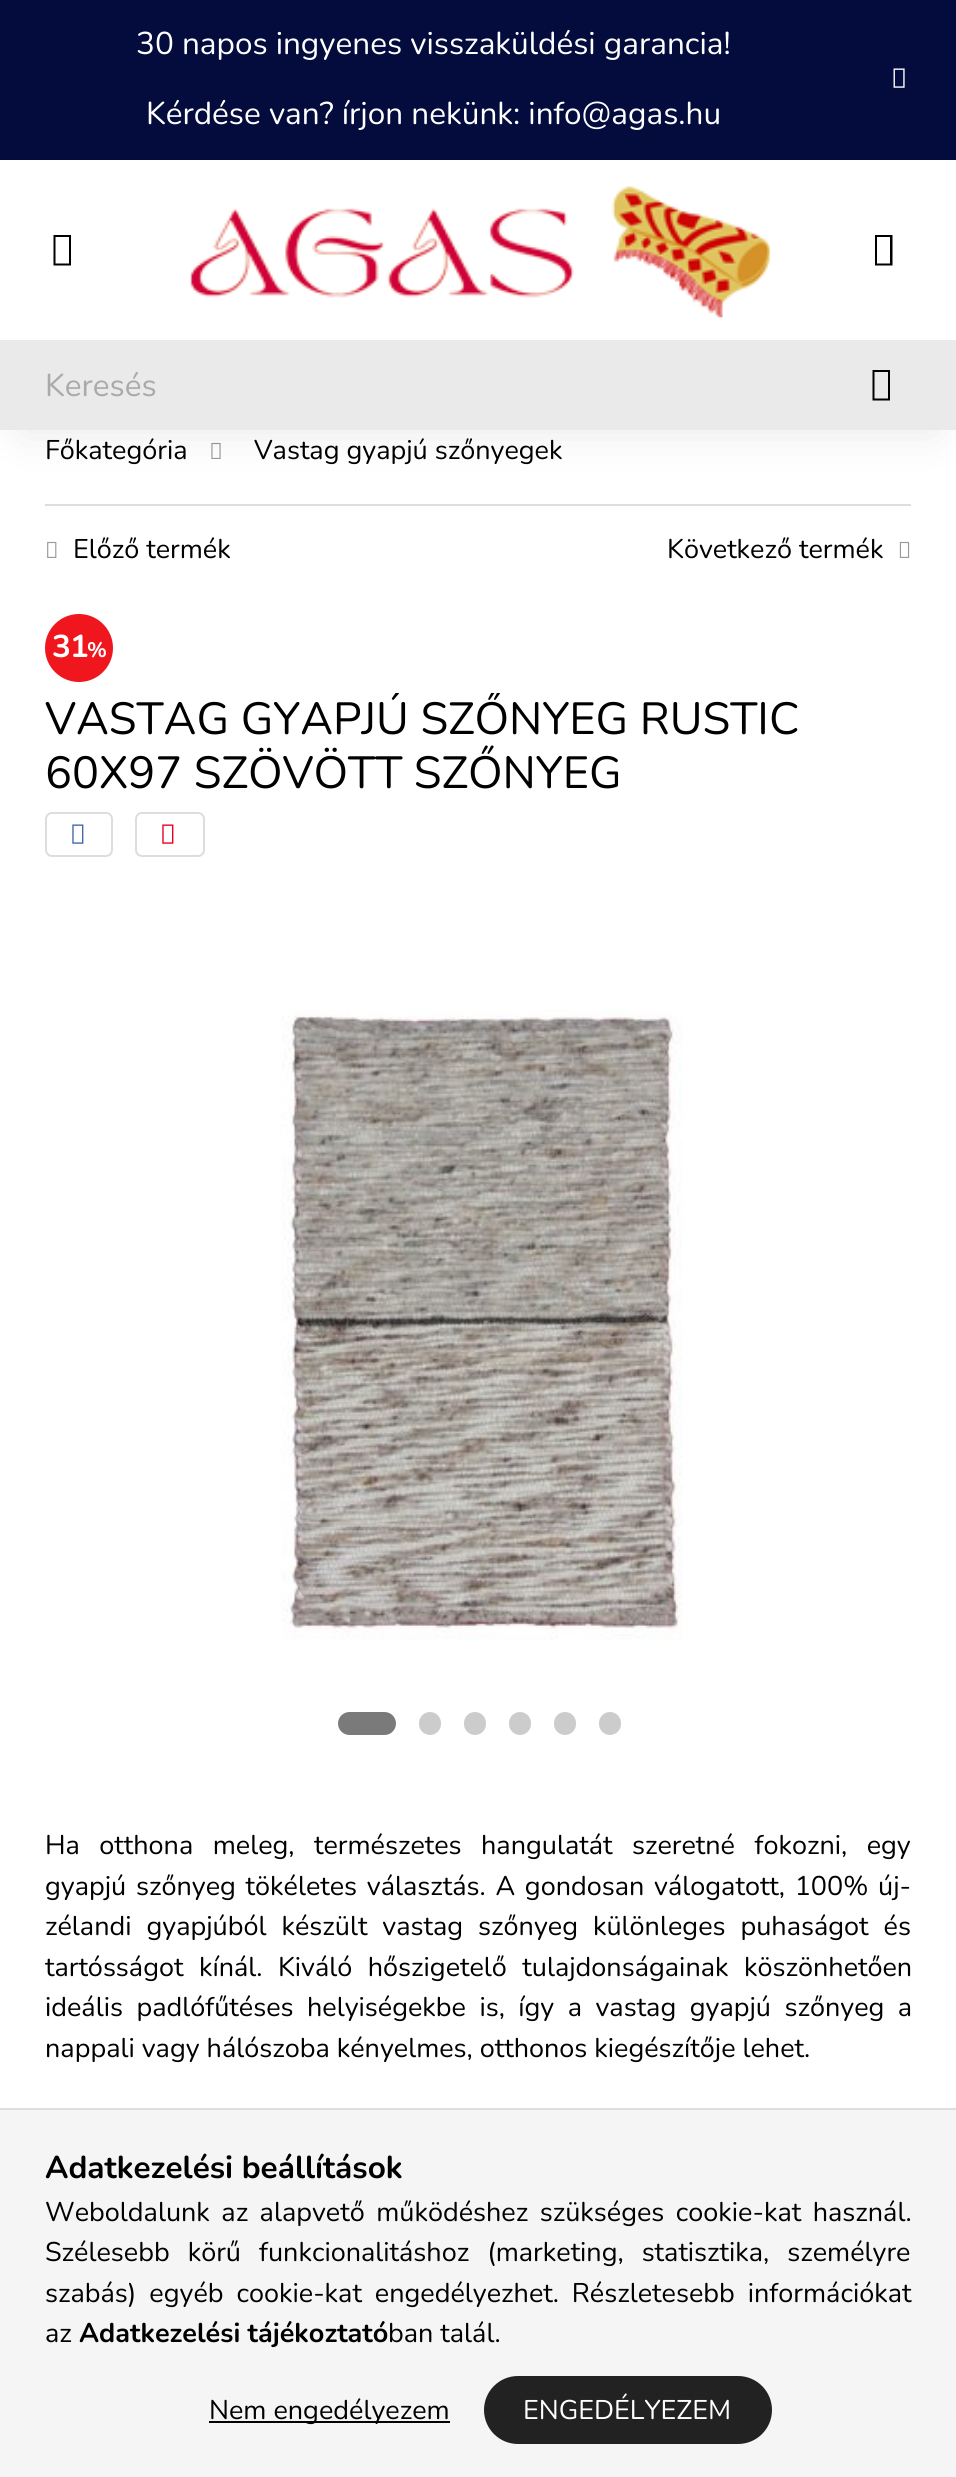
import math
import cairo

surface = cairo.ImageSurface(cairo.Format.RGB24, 956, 2477)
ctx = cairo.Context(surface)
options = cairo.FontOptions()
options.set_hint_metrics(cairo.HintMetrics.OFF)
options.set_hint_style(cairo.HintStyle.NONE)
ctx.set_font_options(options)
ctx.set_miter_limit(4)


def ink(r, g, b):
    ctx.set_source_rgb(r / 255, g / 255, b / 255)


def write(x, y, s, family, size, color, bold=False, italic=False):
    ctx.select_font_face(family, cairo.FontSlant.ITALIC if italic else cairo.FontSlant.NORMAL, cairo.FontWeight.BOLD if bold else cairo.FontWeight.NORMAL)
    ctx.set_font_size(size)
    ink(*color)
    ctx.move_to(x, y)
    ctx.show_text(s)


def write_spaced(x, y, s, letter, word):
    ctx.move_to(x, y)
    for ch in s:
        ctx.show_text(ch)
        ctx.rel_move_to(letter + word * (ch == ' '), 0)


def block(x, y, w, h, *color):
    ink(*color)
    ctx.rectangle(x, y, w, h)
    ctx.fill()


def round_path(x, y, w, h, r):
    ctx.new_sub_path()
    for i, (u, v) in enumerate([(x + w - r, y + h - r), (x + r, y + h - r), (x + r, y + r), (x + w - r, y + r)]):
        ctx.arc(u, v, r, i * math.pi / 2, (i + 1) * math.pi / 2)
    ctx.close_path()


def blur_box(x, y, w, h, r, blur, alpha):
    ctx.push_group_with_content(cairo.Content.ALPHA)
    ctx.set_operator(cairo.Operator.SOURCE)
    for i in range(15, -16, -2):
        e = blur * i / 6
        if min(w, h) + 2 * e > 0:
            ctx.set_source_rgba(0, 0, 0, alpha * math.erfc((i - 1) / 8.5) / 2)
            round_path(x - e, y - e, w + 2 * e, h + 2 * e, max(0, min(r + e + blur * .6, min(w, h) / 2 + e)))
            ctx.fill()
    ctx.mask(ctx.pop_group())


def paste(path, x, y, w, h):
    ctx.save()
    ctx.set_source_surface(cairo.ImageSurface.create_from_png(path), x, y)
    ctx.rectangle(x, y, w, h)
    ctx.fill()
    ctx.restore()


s1 = dict(family="Nunito", size=31.5, color=(255, 255, 255))
s2 = dict(family="Nunito", size=31.5, color=(170, 170, 170))
s3 = dict(family="Nunito", size=27, color=(0, 0, 0))
s4 = dict(family="Nunito", size=45, color=(0, 0, 0))
s5 = dict(family="Nunito", size=31.5, color=(0, 0, 0), bold=True)
s6 = dict(family="Nunito", size=27, color=(0, 0, 0), bold=True)
s7 = dict(family="Nunito", size=27, color=(255, 255, 255))

ink(255, 255, 255)
ctx.paint()
block(0, 0, 956, 160, 3, 12, 61)
write(136, 54, "30 napos ingyenes visszaküldési garancia!", **s1)
paste("pic1.png", 893, 68, 12, 20)
write(146, 124, "Kérdése van? írjon nekünk: info@agas.hu", **s1)
ink(0, 0, 0)
blur_box(0, 160, 956, 180, 0, 22.5, 0.05)
block(0, 160, 956, 180, 255, 255, 255)
ink(0, 0, 0)
ctx.new_path()
ctx.move_to(53.5, 265.5)
ctx.line_to(53.5, 235)
ctx.line_to(71, 235)
ctx.line_to(71, 265.5)
ctx.close_path()
ctx.move_to(55.5, 263.5)
ctx.line_to(69, 263.5)
ctx.line_to(69, 237)
ctx.line_to(55.5, 237)
ctx.close_path()
ctx.fill()
paste("pic2.png", 190, 186, 581, 132)
ctx.new_path()
ctx.move_to(875, 265.5)
ctx.line_to(875, 235)
ctx.line_to(892.5, 235)
ctx.line_to(892.5, 265.5)
ctx.close_path()
ctx.move_to(877, 263.5)
ctx.line_to(890, 263.5)
ctx.line_to(890, 237)
ctx.line_to(877, 237)
ctx.close_path()
ctx.fill()
paste("pic3.png", 211, 442, 10, 17)
ink(0, 0, 0)
blur_box(23, 385, 911, 45, 0, 22.5, 0.1)
block(0, 340, 956, 90, 234, 234, 234)
write(45, 396, "Keresés", **s2)
ink(0, 0, 0)
ctx.new_path()
ctx.move_to(872.5, 400.5)
ctx.line_to(872.5, 370)
ctx.line_to(890, 370)
ctx.line_to(890, 400.5)
ctx.close_path()
ctx.move_to(874.5, 398.5)
ctx.line_to(888, 398.5)
ctx.line_to(888, 372)
ctx.line_to(874.5, 372)
ctx.close_path()
ctx.fill()
write(45, 459, "Főkategória", **s3)
write(254, 459, "Vastag gyapjú szőnyegek", **s3)
block(45, 504, 866, 2, 221, 221, 221)
paste("pic4.png", 47, 541, 10, 17)
write(73, 558, "Előző termék", **s3)
write(667, 558, "Következő termék", **s3)
paste("pic5.png", 899, 541, 11, 17)
ink(240, 22, 29)
ctx.arc(79, 648, 34, 0, 2 * math.pi)
ctx.fill()
ctx.select_font_face("Nunito", cairo.FontSlant.NORMAL, cairo.FontWeight.BOLD)
ctx.set_font_size(31.5)
ink(255, 255, 255)
write_spaced(52, 657, "31", -1, 0)
ctx.set_font_size(21)
write_spaced(87, 657, "%", -1, 0)
ctx.save()
ctx.rectangle(45, 693, 866, 108)
ctx.clip()
write(45, 734, "VASTAG GYAPJÚ SZŐNYEG RUSTIC", **s4)
ctx.restore()
write(45, 788, "60X97 SZÖVÖTT SZŐNYEG", **s4)
round_path(46, 813, 66, 43, 6)
ink(221, 221, 221)
ctx.stroke()
paste("pic6.png", 72, 824, 12, 20)
round_path(136, 813, 68, 43, 6)
ctx.stroke()
paste("pic7.png", 162, 824, 12, 20)
paste("pic8.png", 281, 1010, 402, 630)
ink(122, 122, 122)
round_path(338, 1712, 58, 23, 11.5)
ctx.fill()
ink(204, 204, 204)
round_path(419, 1712, 22, 23, 11)
ctx.fill()
round_path(464, 1712, 22, 23, 11)
ctx.fill()
round_path(509, 1712, 22, 23, 11)
ctx.fill()
round_path(554, 1712, 22, 23, 11)
ctx.fill()
round_path(599, 1712, 22, 23, 11)
ctx.fill()
ctx.set_font_size(27)
ink(0, 0, 0)
write_spaced(45, 1854, "Ha otthona meleg, természetes hangulatát szeretné fokozni, egy", 0, 12.5)
write_spaced(45, 1895, "gyapjú szőnyeg tökéletes választás. A gondosan válogatott, 100% új-", 0, 2.75)
write_spaced(45, 1935, "zélandi gyapjúból készült vastag szőnyeg különleges puhaságot és", 0, 8)
write_spaced(45, 1976, "tartósságot kínál. Kiváló hőszigetelő tulajdonságainak köszönhetően", 0, 8.5)
write_spaced(45, 2016, "ideális padlófűtéses helyiségekbe is, így a vastag gyapjú szőnyeg a", 0, 6.5)
write(45, 2057, "nappali vagy hálószoba kényelmes, otthonos kiegészítője lehet.", **s3)
block(0, 2110, 956, 367, 245, 245, 245)
block(0, 2108, 956, 2, 221, 221, 221)
write(45, 2178, "Adatkezelési beállítások", **s5)
ctx.select_font_face("Nunito")
ctx.set_font_size(27)
write_spaced(45, 2221, "Weboldalunk az alapvető működéshez szükséges cookie-kat használ.", 0, 4.5)
write_spaced(45, 2261, "Szélesebb körű funkcionalitáshoz (marketing, statisztika, személyre", 0, 11)
write_spaced(45, 2302, "szabás) egyéb cookie-kat engedélyezhet. Részletesebb információkat", 0, 6)
write(45, 2342, "az", **s3)
write(79, 2342, "Adatkezelési tájékoztató", **s6)
write(388, 2342, "ban talál.", **s3)
block(209, 2421, 241, 2, 0, 0, 0)
write(209, 2419, "Nem engedélyezem", **s3)
ink(34, 34, 34)
round_path(485, 2377, 286, 66, 33)
ctx.fill_preserve()
ctx.stroke()
write(523, 2419, "ENGEDÉLYEZEM", **s7)
surface.write_to_png("screenshot.png")
